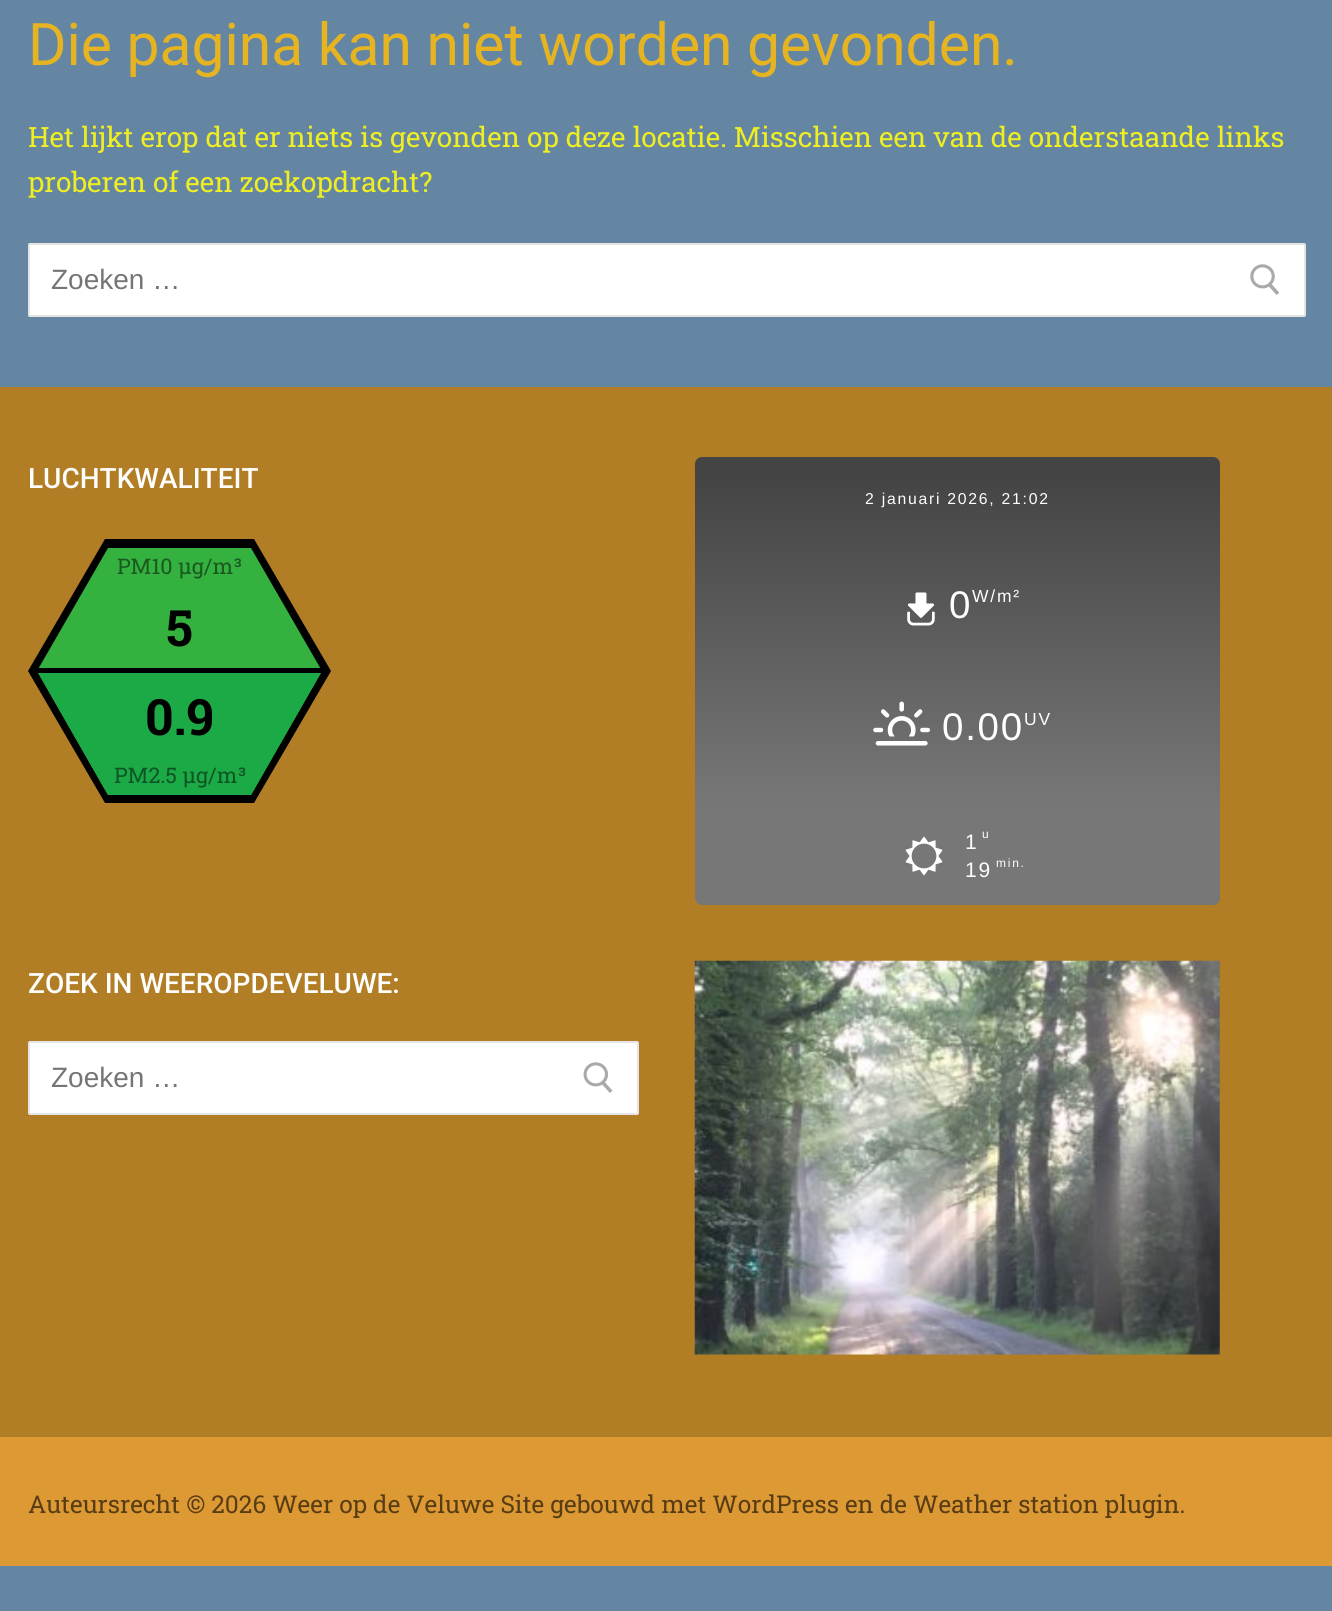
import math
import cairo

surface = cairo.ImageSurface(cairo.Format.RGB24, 1332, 1611)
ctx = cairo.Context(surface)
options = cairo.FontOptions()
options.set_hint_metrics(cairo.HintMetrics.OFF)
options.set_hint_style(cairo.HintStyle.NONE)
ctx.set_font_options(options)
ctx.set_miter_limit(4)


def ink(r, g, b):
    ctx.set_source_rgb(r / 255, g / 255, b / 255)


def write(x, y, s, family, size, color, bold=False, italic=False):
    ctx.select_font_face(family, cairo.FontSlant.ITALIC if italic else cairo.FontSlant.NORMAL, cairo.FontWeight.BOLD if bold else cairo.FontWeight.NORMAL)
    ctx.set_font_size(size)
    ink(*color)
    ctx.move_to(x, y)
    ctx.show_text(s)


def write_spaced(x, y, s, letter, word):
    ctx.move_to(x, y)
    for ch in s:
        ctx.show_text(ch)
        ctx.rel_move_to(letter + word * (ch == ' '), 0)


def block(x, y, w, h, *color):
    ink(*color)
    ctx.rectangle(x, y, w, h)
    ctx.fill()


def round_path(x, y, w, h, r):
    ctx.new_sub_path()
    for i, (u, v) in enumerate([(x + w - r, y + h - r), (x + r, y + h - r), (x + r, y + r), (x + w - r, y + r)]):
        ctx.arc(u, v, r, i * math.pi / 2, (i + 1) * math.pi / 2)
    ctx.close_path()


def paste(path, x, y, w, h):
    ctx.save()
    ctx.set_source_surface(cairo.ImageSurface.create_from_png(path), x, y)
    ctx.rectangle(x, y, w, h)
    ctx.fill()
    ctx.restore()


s1 = dict(family="Roboto", size=58.75, color=(229, 180, 32))
s2 = dict(family="Roboto Slab", size=28, color=(238, 238, 34))
s3 = dict(family="Liberation Sans", size=28, color=(117, 117, 117))
s4 = dict(family="Roboto Medium", size=28, color=(254, 254, 253))
s5 = dict(family="Roboto Slab", size=21.5, color=(26, 89, 32))
s6 = dict(family="Roboto Slab", size=50, color=(0, 0, 0), bold=True)
s7 = dict(family="Roboto Slab", size=21.5, color=(14, 85, 36))
s8 = dict(family="Roboto Slab", size=24.5, color=(88, 61, 20))

ink(101, 134, 163)
ctx.paint()
write(28, 65, "Die pagina kan niet worden gevonden.", **s1)
write(28, 147, "Het lijkt erop dat er niets is gevonden op deze locatie. Misschien een van de onderstaande links", **s2)
write(28, 192, "proberen of een zoekopdracht?", **s2)
ink(255, 255, 255)
round_path(29, 244, 1276, 72, 1)
ctx.fill_preserve()
ink(229, 229, 229)
ctx.stroke()
write(51, 289, "Zoeken …", **s3)
paste("pic1.png", 1250, 264, 30, 31)
block(0, 387, 1332, 1050, 178, 126, 37)
write(28, 488, "LUCHTKWALITEIT", **s4)
ink(0, 0, 0)
ctx.new_path()
ctx.move_to(28, 671)
ctx.line_to(105, 539)
ctx.line_to(254, 539)
ctx.line_to(331, 671)
ctx.line_to(254, 803)
ctx.line_to(105, 803)
ctx.close_path()
ctx.fill()
ink(52, 177, 63)
ctx.new_path()
ctx.move_to(37, 671)
ctx.line_to(108, 548)
ctx.line_to(251, 548)
ctx.line_to(322, 671)
ctx.line_to(251, 795)
ctx.line_to(108, 795)
ctx.close_path()
ctx.fill()
write(117, 574, "PM10 µg/m³", **s5)
write(166, 646, "5", **s6)
ink(28, 170, 71)
ctx.new_path()
ctx.move_to(37, 671)
ctx.line_to(322, 671)
ctx.line_to(251, 795)
ctx.line_to(108, 795)
ctx.close_path()
ctx.fill()
block(37, 668, 285, 5, 0, 0, 0)
write(145, 735, "0.9", **s6)
write(114, 783, "PM2.5 µg/m³", **s7)
gradient = cairo.LinearGradient(957, 457, 957, 905)
gradient.add_color_stop_rgba(0.04, 0.267, 0.267, 0.267, 1)
gradient.add_color_stop_rgba(0.78, 0.467, 0.467, 0.467, 1)
ctx.set_source(gradient)
round_path(695, 457, 525, 448, 7)
ctx.fill()
ctx.select_font_face("Liberation Sans")
ctx.set_font_size(15.75)
ink(254, 254, 253)
write_spaced(865, 504, "2 januari 2026, 21:02", 1.75, 0)
paste("pic2.png", 907, 592, 28, 34)
ctx.set_font_size(38.5)
write_spaced(949, 618, "0", 1.75, 0)
ctx.set_font_size(17.5)
write_spaced(972, 602, "W/m²", 1.75, 0)
paste("pic3.png", 873, 701, 57, 45)
ctx.set_font_size(38.5)
write_spaced(942, 740, "0.00", 1.75, 0)
ctx.set_font_size(17.5)
write_spaced(1024, 725, "UV", 1.75, 0)
paste("pic4.png", 905, 836, 38, 40)
ctx.set_font_size(21)
write_spaced(965, 849, "1", 1.75, 0)
ctx.set_font_size(12)
write_spaced(982, 838, "u", 1.75, 0)
ctx.set_font_size(21)
write_spaced(965, 877, "19", 1.75, 0)
ctx.set_font_size(12)
write_spaced(996, 867, "min.", 1.75, 0)
write(28, 993, "ZOEK IN WEEROPDEVELUWE:", **s4)
ink(255, 255, 255)
round_path(29, 1042, 609, 72, 1)
ctx.fill_preserve()
ink(229, 229, 229)
ctx.stroke()
write(51, 1087, "Zoeken …", **s3)
paste("pic5.png", 583, 1062, 30, 31)
paste("pic6.png", 694, 960, 526, 395)
block(0, 1437, 1332, 129, 221, 153, 51)
write(28, 1513, "Auteursrecht © 2026 Weer op de Veluwe Site gebouwd met WordPress en de Weather station plugin.", **s8)
surface.write_to_png("screenshot.png")
